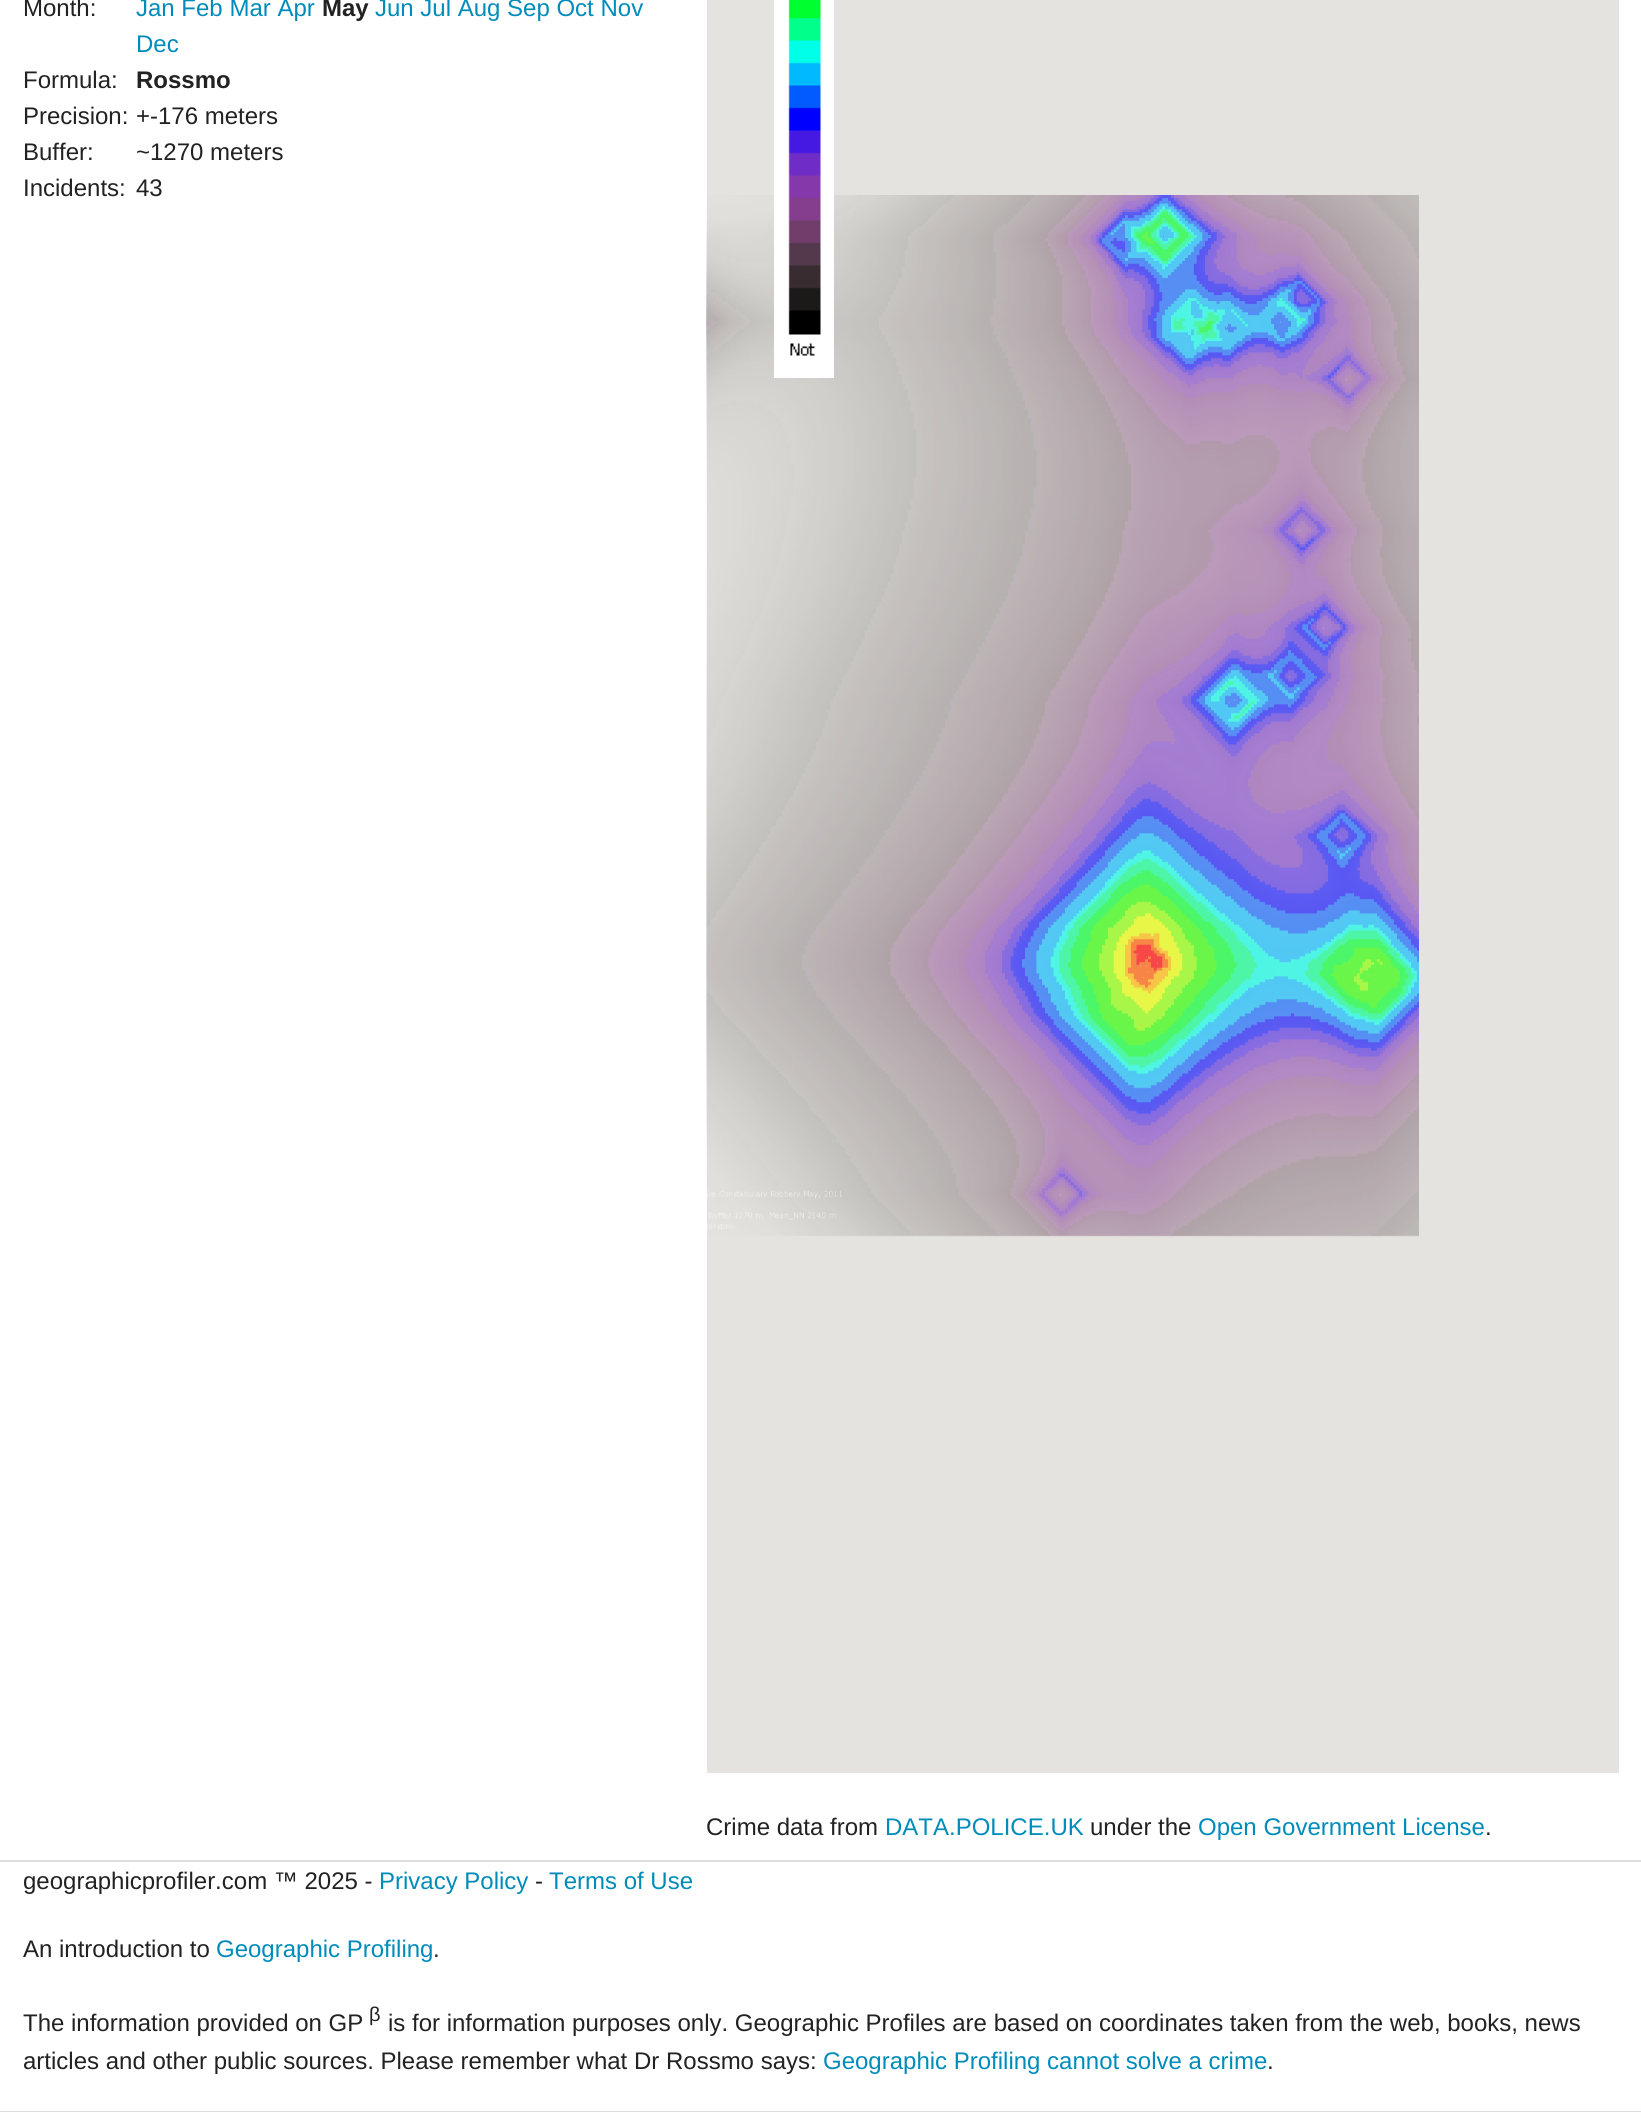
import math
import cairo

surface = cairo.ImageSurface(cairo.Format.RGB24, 1641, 2112)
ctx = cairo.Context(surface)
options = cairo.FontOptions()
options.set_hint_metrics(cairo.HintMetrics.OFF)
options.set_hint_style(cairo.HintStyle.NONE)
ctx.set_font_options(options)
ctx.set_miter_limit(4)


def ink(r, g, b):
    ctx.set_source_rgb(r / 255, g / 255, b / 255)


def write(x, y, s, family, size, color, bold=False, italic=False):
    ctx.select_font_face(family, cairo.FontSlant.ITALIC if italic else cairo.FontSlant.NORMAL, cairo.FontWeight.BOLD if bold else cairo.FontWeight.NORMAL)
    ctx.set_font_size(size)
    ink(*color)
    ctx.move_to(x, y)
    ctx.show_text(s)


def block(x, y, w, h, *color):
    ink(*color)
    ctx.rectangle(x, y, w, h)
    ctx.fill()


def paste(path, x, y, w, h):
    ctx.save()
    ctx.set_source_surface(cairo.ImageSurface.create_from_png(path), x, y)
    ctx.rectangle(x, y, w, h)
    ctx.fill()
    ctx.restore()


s1 = dict(family="Liberation Sans", size=24, color=(34, 34, 34))
s2 = dict(family="Liberation Sans", size=24, color=(0, 140, 186))
s3 = dict(family="Liberation Sans", size=24, color=(34, 34, 34), bold=True)
s4 = dict(family="Liberation Sans", size=20, color=(34, 34, 34))

ink(255, 255, 255)
ctx.paint()
write(23, 16, "Month:", **s1)
write(136, 16, "Jan Feb Mar Apr", **s2)
write(322, 16, "May", **s3)
write(375, 16, "Jun Jul Aug Sep Oct Nov", **s2)
write(136, 52, "Dec", **s2)
write(23, 88, "Formula:", **s1)
write(136, 88, "Rossmo", **s3)
write(23, 124, "Precision:", **s1)
write(136, 124, "+-176 meters", **s1)
write(23, 160, "Buffer:", **s1)
write(136, 160, "~1270 meters", **s1)
write(23, 196, "Incidents:", **s1)
write(136, 196, "43", **s1)
block(707, 0, 912, 1773, 229, 227, 223)
paste("pic1.png", 706, 195, 713, 1042)
paste("pic2.png", 774, 0, 60, 378)
write(706, 1835, "Crime data from", **s1)
write(885, 1835, "DATA.POLICE.UK", **s2)
write(1090, 1835, "under the", **s1)
write(1198, 1835, "Open Government License", **s2)
write(1485, 1835, ".", **s1)
block(0, 1860, 1641, 2, 221, 221, 221)
block(0, 2111, 1641, 1, 221, 221, 221)
write(23, 1889, "geographicprofiler.com ™ 2025 -", **s1)
write(379, 1889, "Privacy Policy", **s2)
write(535, 1889, "-", **s1)
write(549, 1889, "Terms of Use", **s2)
write(23, 1957, "An introduction to", **s1)
write(216, 1957, "Geographic Profiling", **s2)
write(433, 1957, ".", **s1)
write(23, 2031, "The information provided on GP", **s1)
write(369, 2021, "β", **s4)
write(388, 2031, "is for information purposes only. Geographic Profiles are based on coordinates taken from the web, books, news", **s1)
write(23, 2069, "articles and other public sources. Please remember what Dr Rossmo says:", **s1)
write(823, 2069, "Geographic Profiling cannot solve a crime", **s2)
write(1267, 2069, ".", **s1)
surface.write_to_png("screenshot.png")
